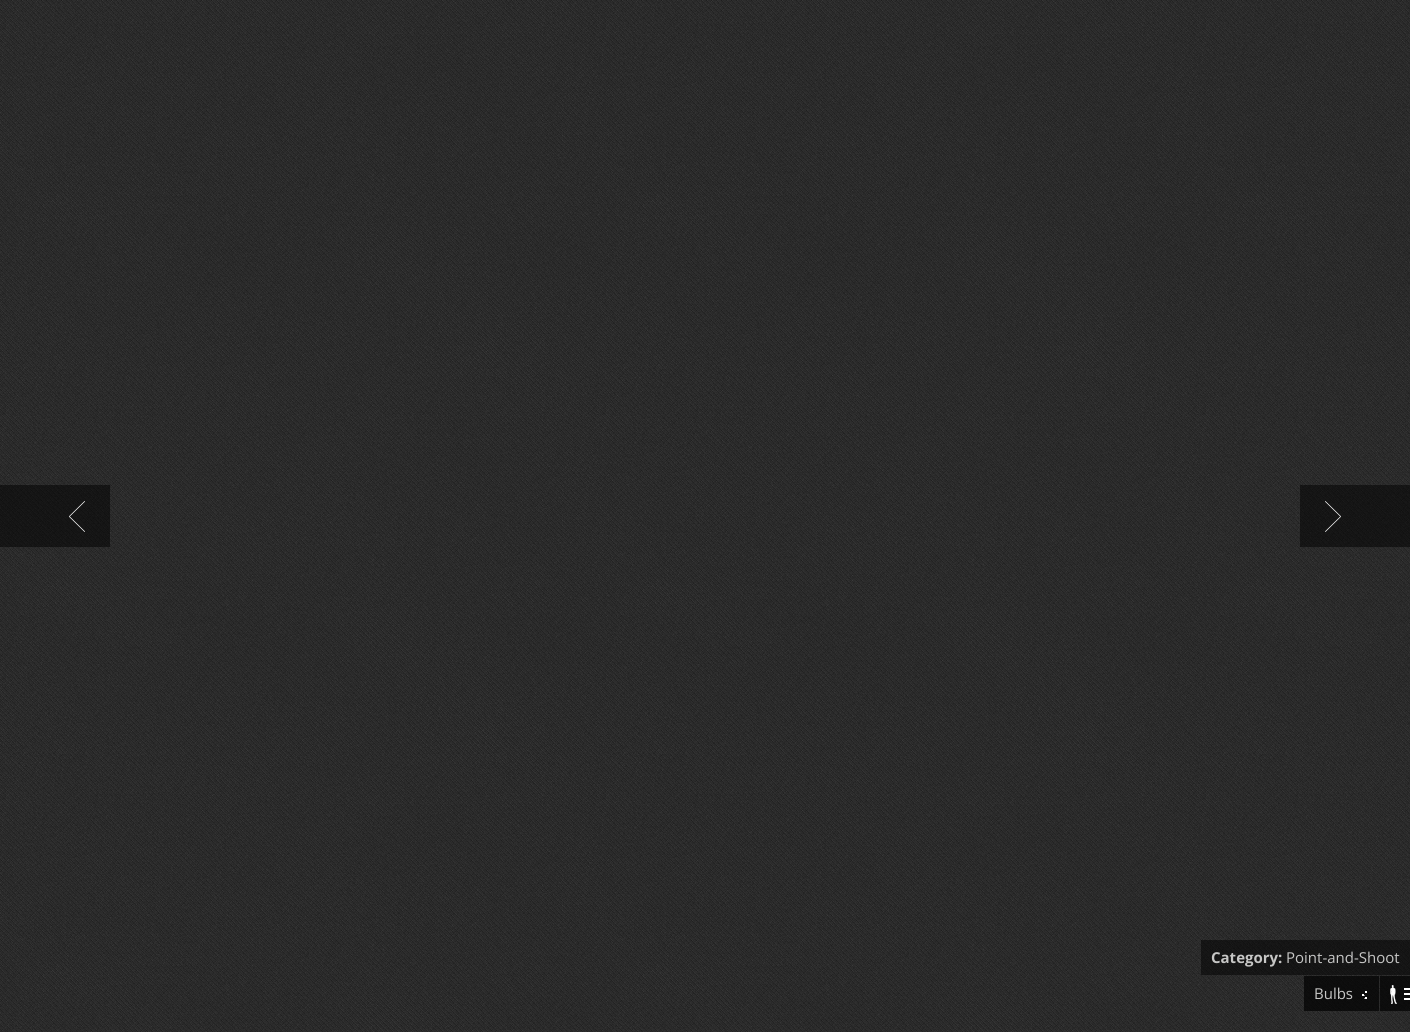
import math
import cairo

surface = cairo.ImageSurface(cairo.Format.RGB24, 1410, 1032)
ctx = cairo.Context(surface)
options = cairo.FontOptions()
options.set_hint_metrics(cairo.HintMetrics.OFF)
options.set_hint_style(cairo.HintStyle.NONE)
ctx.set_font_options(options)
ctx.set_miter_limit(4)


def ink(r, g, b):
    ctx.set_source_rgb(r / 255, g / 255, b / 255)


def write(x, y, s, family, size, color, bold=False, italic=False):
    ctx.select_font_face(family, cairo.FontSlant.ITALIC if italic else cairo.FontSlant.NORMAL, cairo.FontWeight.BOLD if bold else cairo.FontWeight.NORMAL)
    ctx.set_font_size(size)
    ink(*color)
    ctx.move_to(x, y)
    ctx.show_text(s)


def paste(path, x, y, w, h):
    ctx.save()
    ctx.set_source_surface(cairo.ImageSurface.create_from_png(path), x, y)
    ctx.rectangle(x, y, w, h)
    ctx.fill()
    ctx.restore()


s1 = dict(family="Open Sans", size=15, color=(198, 198, 197), bold=True)
s2 = dict(family="Open Sans", size=15, color=(198, 198, 197))

ink(255, 255, 255)
ctx.paint()
paste("pic1.png", 0, 0, 1410, 1032)
ctx.set_source_rgba(0, 0, 0, 0.5)
ctx.rectangle(0, 485, 110, 62)
ctx.fill()
paste("pic2.png", 69, 501, 16, 31)
ctx.rectangle(1300, 485, 110, 62)
ctx.fill()
paste("pic3.png", 1325, 501, 16, 31)
ctx.rectangle(1201, 940, 209, 35)
ctx.fill()
write(1211, 963, "Category:", **s1)
write(1286, 963, "Point-and-Shoot", **s2)
ctx.set_source_rgba(0, 0, 0, 0.7)
ctx.rectangle(1304, 976, 75, 35)
ctx.fill()
write(1314, 999, "Bulbs", **s2)
paste("pic4.png", 1362, 991, 5, 8)
ctx.set_source_rgba(0, 0, 0, 0.7)
ctx.rectangle(1380, 976, 20, 35)
ctx.fill()
ctx.rectangle(1400, 976, 10, 35)
ctx.fill()
paste("pic5.png", 1404, 988, 6, 12)
paste("pic6.png", 1390, 985, 7, 19)
surface.write_to_png("screenshot.png")
